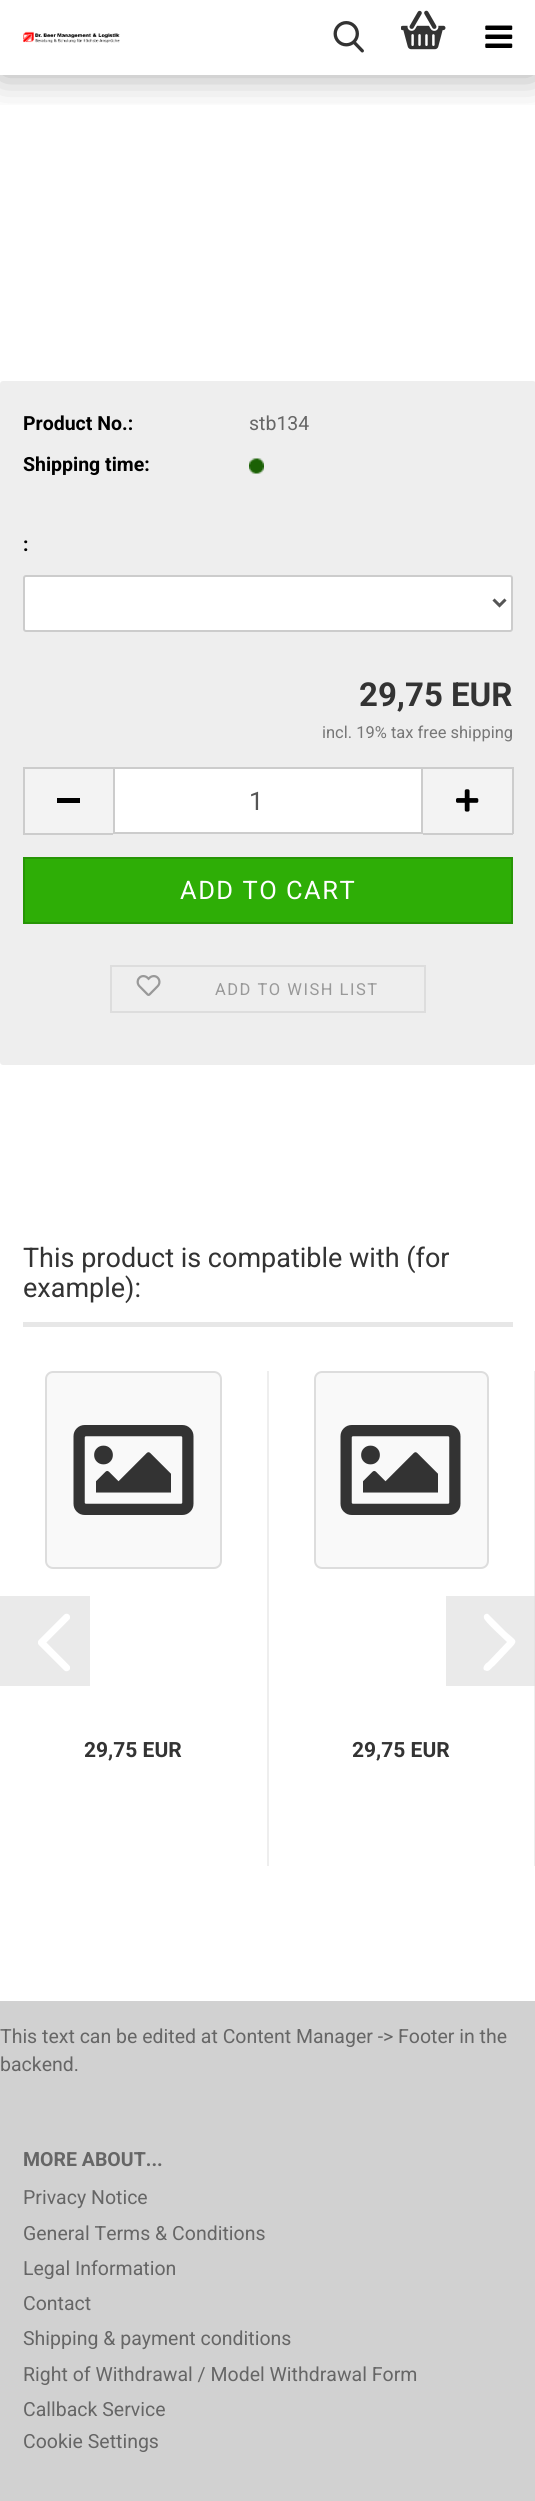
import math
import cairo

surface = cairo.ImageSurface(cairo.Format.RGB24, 535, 2501)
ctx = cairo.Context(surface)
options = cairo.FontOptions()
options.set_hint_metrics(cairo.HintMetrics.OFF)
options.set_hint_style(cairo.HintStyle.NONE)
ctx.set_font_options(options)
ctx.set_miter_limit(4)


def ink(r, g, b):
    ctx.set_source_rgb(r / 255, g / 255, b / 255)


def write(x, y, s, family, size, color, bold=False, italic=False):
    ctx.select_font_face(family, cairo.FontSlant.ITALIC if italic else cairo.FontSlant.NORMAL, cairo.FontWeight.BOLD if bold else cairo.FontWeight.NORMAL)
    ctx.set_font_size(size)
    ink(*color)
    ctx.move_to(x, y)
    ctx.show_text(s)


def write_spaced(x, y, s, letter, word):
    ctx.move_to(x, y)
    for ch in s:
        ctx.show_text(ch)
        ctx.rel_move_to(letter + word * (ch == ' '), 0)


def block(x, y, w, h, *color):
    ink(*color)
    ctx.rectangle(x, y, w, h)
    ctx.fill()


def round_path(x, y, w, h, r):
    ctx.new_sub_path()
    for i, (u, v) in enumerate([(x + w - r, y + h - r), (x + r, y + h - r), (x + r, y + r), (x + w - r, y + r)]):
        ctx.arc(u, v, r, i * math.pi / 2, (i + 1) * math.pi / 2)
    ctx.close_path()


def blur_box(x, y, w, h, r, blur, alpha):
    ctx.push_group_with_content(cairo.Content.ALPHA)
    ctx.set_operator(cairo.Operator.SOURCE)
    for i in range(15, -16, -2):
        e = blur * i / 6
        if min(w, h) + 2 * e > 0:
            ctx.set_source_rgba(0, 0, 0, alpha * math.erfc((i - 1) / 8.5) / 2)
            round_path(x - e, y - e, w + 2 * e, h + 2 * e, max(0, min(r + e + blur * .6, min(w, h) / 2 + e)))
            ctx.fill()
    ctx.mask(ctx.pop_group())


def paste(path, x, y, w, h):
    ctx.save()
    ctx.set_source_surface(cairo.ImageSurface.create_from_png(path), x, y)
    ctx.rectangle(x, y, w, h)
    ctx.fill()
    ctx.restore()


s1 = dict(family="Roboto", size=19.5, color=(0, 0, 0), bold=True)
s2 = dict(family="Roboto", size=19.5, color=(102, 102, 102))
s3 = dict(family="Roboto", size=33, color=(51, 51, 51), bold=True)
s4 = dict(family="Roboto", size=16.5, color=(119, 119, 119))
s5 = dict(family="Roboto", size=25.5, color=(85, 85, 85))
s6 = dict(family="Roboto", size=27, color=(51, 51, 51))
s7 = dict(family="Roboto", size=21, color=(51, 51, 51), bold=True)
s8 = dict(family="Roboto", size=19.5, color=(102, 102, 102), bold=True)

ink(255, 255, 255)
ctx.paint()
block(446, 1596, 88, 90, 234, 234, 234)
ctx.save()
ctx.rectangle(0, 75, 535, 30)
ctx.clip()
ink(0, 0, 0)
blur_box(0, 0, 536, 75, 0, 19, 0.35)
ctx.restore()
paste("pic1.png", 23, 31, 97, 12)
paste("pic2.png", 333, 21, 31, 32)
paste("pic3.png", 401, 10, 45, 40)
paste("pic4.png", 485, 25, 28, 23)
ink(238, 238, 238)
round_path(0, 381, 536, 684, 3)
ctx.fill()
write(23, 430, "Product No.:", **s1)
write(249, 430, "stb134", **s2)
write(23, 471, "Shipping time:", **s1)
paste("pic5.png", 249, 458, 15, 16)
write(23, 551, ":", **s1)
ink(255, 255, 255)
round_path(24, 576, 488, 55, 2)
ctx.fill_preserve()
ink(204, 204, 204)
ctx.stroke()
ctx.new_path()
ctx.move_to(493.5, 599.5)
ctx.line_to(499.5, 605.5)
ctx.line_to(505.5, 599.5)
ink(85, 85, 85)
ctx.set_line_width(3)
ctx.stroke()
write(359, 706, "29,75 EUR", **s3)
write(322, 738, "incl. 19% tax free shipping", **s4)
block(25, 769, 88, 64, 243, 243, 243)
block(23, 767, 90, 2, 204, 204, 204)
block(23, 833, 90, 2, 204, 204, 204)
block(23, 767, 2, 67, 204, 204, 204)
block(57, 798, 23, 5, 0, 0, 0)
ink(255, 255, 255)
ctx.rectangle(114, 768, 308, 65)
ctx.fill_preserve()
ink(204, 204, 204)
ctx.set_line_width(2)
ctx.stroke()
write(249, 810, "1", **s5)
block(423, 769, 89, 64, 243, 243, 243)
block(423, 767, 90, 2, 204, 204, 204)
block(512, 767, 2, 67, 204, 204, 204)
block(423, 833, 90, 2, 204, 204, 204)
paste("pic6.png", 456, 789, 23, 23)
ink(46, 174, 6)
ctx.rectangle(24, 858, 488, 65)
ctx.fill_preserve()
ink(39, 149, 5)
ctx.stroke()
ink(255, 255, 255)
write_spaced(180, 899, "ADD TO CART", 1.5, 0)
ctx.rectangle(111, 966, 314, 46)
ink(221, 221, 221)
ctx.stroke()
paste("pic7.png", 136, 975, 25, 21)
ctx.set_font_size(16.5)
ink(153, 153, 153)
write_spaced(215, 995, "ADD TO WISH LIST", 1.5, 0)
block(23, 1322, 490, 5, 231, 231, 231)
write(23, 1267, "This product is compatible with (for", **s6)
write(23, 1297, "example):", **s6)
block(0, 1596, 90, 90, 234, 234, 234)
paste("pic8.png", 38, 1613, 32, 59)
ink(255, 255, 255)
ctx.new_path()
ctx.move_to(487, 1671)
ctx.line_to(484, 1670)
ctx.curve_to(482, 1667, 486, 1663, 488, 1662)
ctx.line_to(507, 1642)
ctx.curve_to(504, 1639, 484, 1621, 484, 1618)
ctx.curve_to(483, 1615, 486, 1613, 488, 1614)
ctx.line_to(506, 1632)
ctx.curve_to(516, 1641, 519, 1640, 510, 1649)
ctx.line_to(494, 1666)
ctx.curve_to(492, 1667, 490, 1671, 487, 1671)
ctx.close_path()
ctx.fill()
block(267, 1371, 2, 495, 238, 238, 238)
ink(249, 249, 249)
round_path(46, 1372, 175, 196, 7)
ctx.fill_preserve()
ink(221, 221, 221)
ctx.stroke()
paste("pic9.png", 73, 1425, 121, 90)
write(84, 1757, "29,75 EUR", **s7)
block(534, 1371, 1, 495, 238, 238, 238)
block(534, 1596, 1, 90, 227, 227, 227)
ink(249, 249, 249)
round_path(315, 1372, 173, 196, 7)
ctx.fill_preserve()
ink(221, 221, 221)
ctx.stroke()
paste("pic9.png", 340, 1425, 121, 90)
write(352, 1757, "29,75 EUR", **s7)
block(0, 2001, 535, 500, 209, 209, 209)
write(0, 2043, "This text can be edited at Content Manager -> Footer in the", **s2)
write(0, 2071, "backend.", **s2)
write(23, 2166, "MORE ABOUT...", **s8)
write(23, 2204, "Privacy Notice", **s2)
write(23, 2240, "General Terms & Conditions", **s2)
write(23, 2275, "Legal Information", **s2)
write(23, 2310, "Contact", **s2)
write(23, 2345, "Shipping & payment conditions", **s2)
write(23, 2381, "Right of Withdrawal / Model Withdrawal Form", **s2)
write(23, 2416, "Callback Service", **s2)
write(23, 2448, "Cookie Settings", **s2)
surface.write_to_png("screenshot.png")
